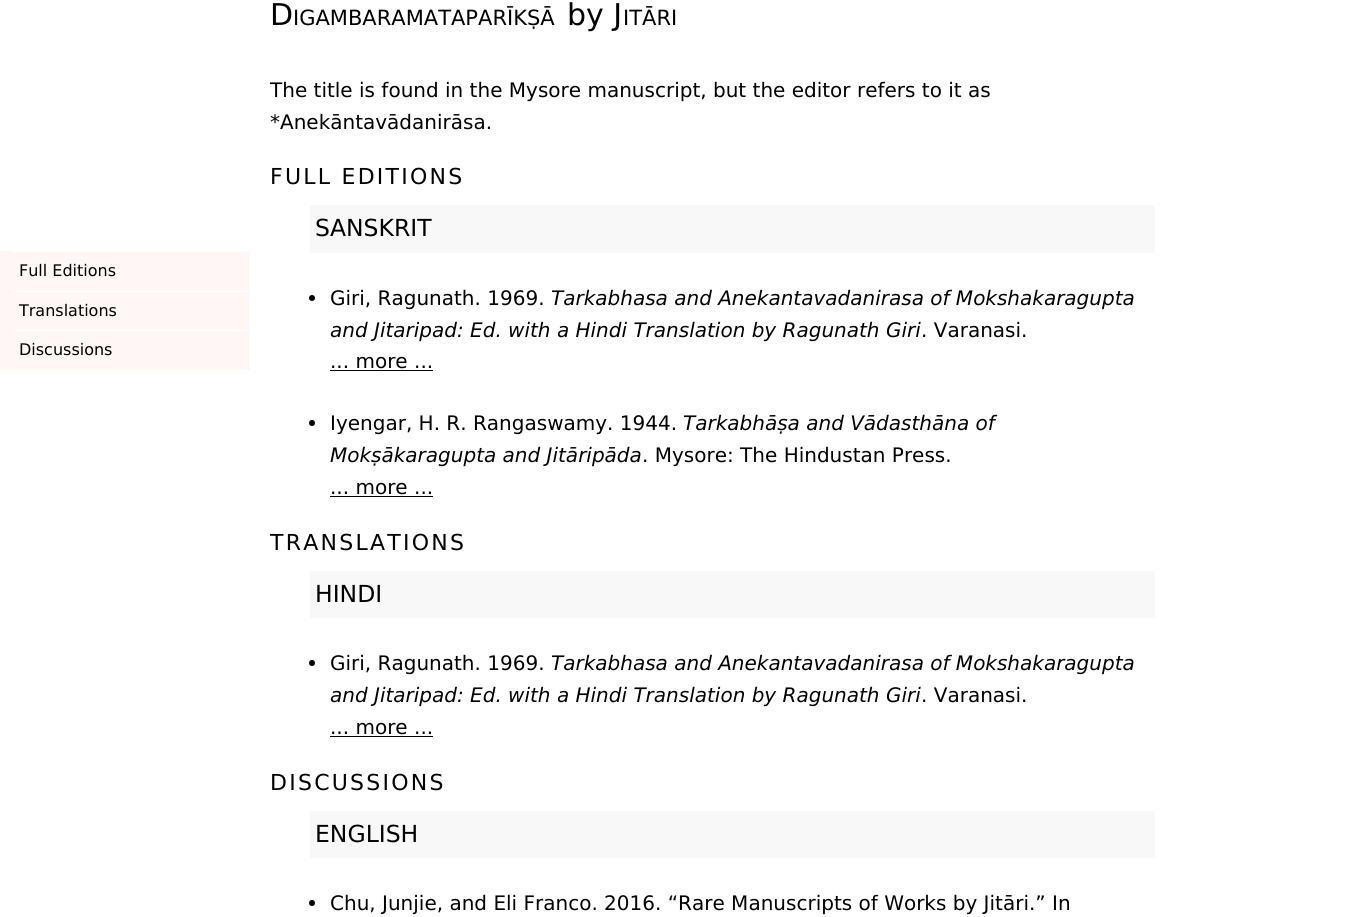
import math
import cairo

surface = cairo.ImageSurface(cairo.Format.RGB24, 1346, 917)
ctx = cairo.Context(surface)
options = cairo.FontOptions()
options.set_hint_metrics(cairo.HintMetrics.OFF)
options.set_hint_style(cairo.HintStyle.NONE)
ctx.set_font_options(options)
ctx.set_miter_limit(4)


def ink(r, g, b):
    ctx.set_source_rgb(r / 255, g / 255, b / 255)


def write(x, y, s, family, size, color, bold=False, italic=False):
    ctx.select_font_face(family, cairo.FontSlant.ITALIC if italic else cairo.FontSlant.NORMAL, cairo.FontWeight.BOLD if bold else cairo.FontWeight.NORMAL)
    ctx.set_font_size(size)
    ink(*color)
    ctx.move_to(x, y)
    ctx.show_text(s)


def write_spaced(x, y, s, letter, word):
    ctx.move_to(x, y)
    for ch in s:
        ctx.show_text(ch)
        ctx.rel_move_to(letter + word * (ch == ' '), 0)


def block(x, y, w, h, *color):
    ink(*color)
    ctx.rectangle(x, y, w, h)
    ctx.fill()


s1 = dict(family="DejaVu Sans", size=16, color=(0, 0, 0))
s2 = dict(family="DejaVu Sans", size=30, color=(0, 0, 0))
s3 = dict(family="DejaVu Sans", size=21, color=(0, 0, 0))
s4 = dict(family="DejaVu Sans", size=20, color=(0, 0, 0))
s5 = dict(family="DejaVu Sans", size=23.5, color=(0, 0, 0))
s6 = dict(family="DejaVu Sans", size=20, color=(0, 0, 0), italic=True)

ink(255, 255, 255)
ctx.paint()
block(0, 251, 250, 119, 254, 247, 245)
block(13, 251, 237, 1, 255, 255, 255)
write(19, 276, "Full Editions", **s1)
block(13, 291, 237, 1, 255, 255, 255)
write(19, 316, "Translations", **s1)
block(13, 330, 237, 1, 255, 255, 255)
write(19, 355, "Discussions", **s1)
write(270, 25, "D", **s2)
write(293, 25, "IGAMBARAMATAPARĪKṢĀ", **s3)
write(567, 25, "by J", **s2)
write(623, 25, "ITĀRI", **s3)
write(270, 97, "The title is found in the Mysore manuscript, but the editor refers to it as", **s4)
write(270, 129, "*Anekāntavādanirāsa.", **s4)
ctx.set_font_size(22)
write_spaced(270, 184, "FULL EDITIONS", 2.25, 0)
block(310, 205, 845, 48, 248, 248, 248)
write(315, 236, "SANSKRIT", **s5)
ctx.new_path()
ctx.arc(312, 298, 3, 0, 2 * math.pi)
ctx.fill()
write(330, 305, "Giri, Ragunath. 1969.", **s4)
write(551, 305, "Tarkabhasa and Anekantavadanirasa of Mokshakaragupta", **s6)
write(330, 337, "and Jitaripad: Ed. with a Hindi Translation by Ragunath Giri", **s6)
write(921, 337, ". Varanasi.", **s4)
write(330, 368, "... more ...", **s4)
block(330, 370, 103, 1, 0, 0, 0)
ctx.new_path()
ctx.arc(312, 423, 3, 0, 2 * math.pi)
ctx.fill()
write(330, 430, "Iyengar, H. R. Rangaswamy. 1944.", **s4)
write(683, 430, "Tarkabhāṣa and Vādasthāna of", **s6)
write(330, 462, "Mokṣākaragupta and Jitāripāda", **s6)
write(642, 462, ". Mysore: The Hindustan Press.", **s4)
write(330, 494, "... more ...", **s4)
block(330, 496, 103, 1, 0, 0, 0)
ctx.set_font_size(22)
write_spaced(270, 550, "TRANSLATIONS", 2.25, 0)
block(310, 571, 845, 47, 248, 248, 248)
write(315, 602, "HINDI", **s5)
ctx.new_path()
ctx.arc(312, 663, 3, 0, 2 * math.pi)
ctx.fill()
write(330, 670, "Giri, Ragunath. 1969.", **s4)
write(551, 670, "Tarkabhasa and Anekantavadanirasa of Mokshakaragupta", **s6)
write(330, 702, "and Jitaripad: Ed. with a Hindi Translation by Ragunath Giri", **s6)
write(921, 702, ". Varanasi.", **s4)
write(330, 734, "... more ...", **s4)
block(330, 736, 103, 1, 0, 0, 0)
ctx.set_font_size(22)
write_spaced(270, 790, "DISCUSSIONS", 2.25, 0)
block(310, 811, 845, 47, 248, 248, 248)
write(315, 842, "ENGLISH", **s5)
ctx.new_path()
ctx.arc(312, 903, 3, 0, 2 * math.pi)
ctx.fill()
write(330, 910, "Chu, Junjie, and Eli Franco. 2016. “Rare Manuscripts of Works by Jitāri.” In", **s4)
surface.write_to_png("screenshot.png")
